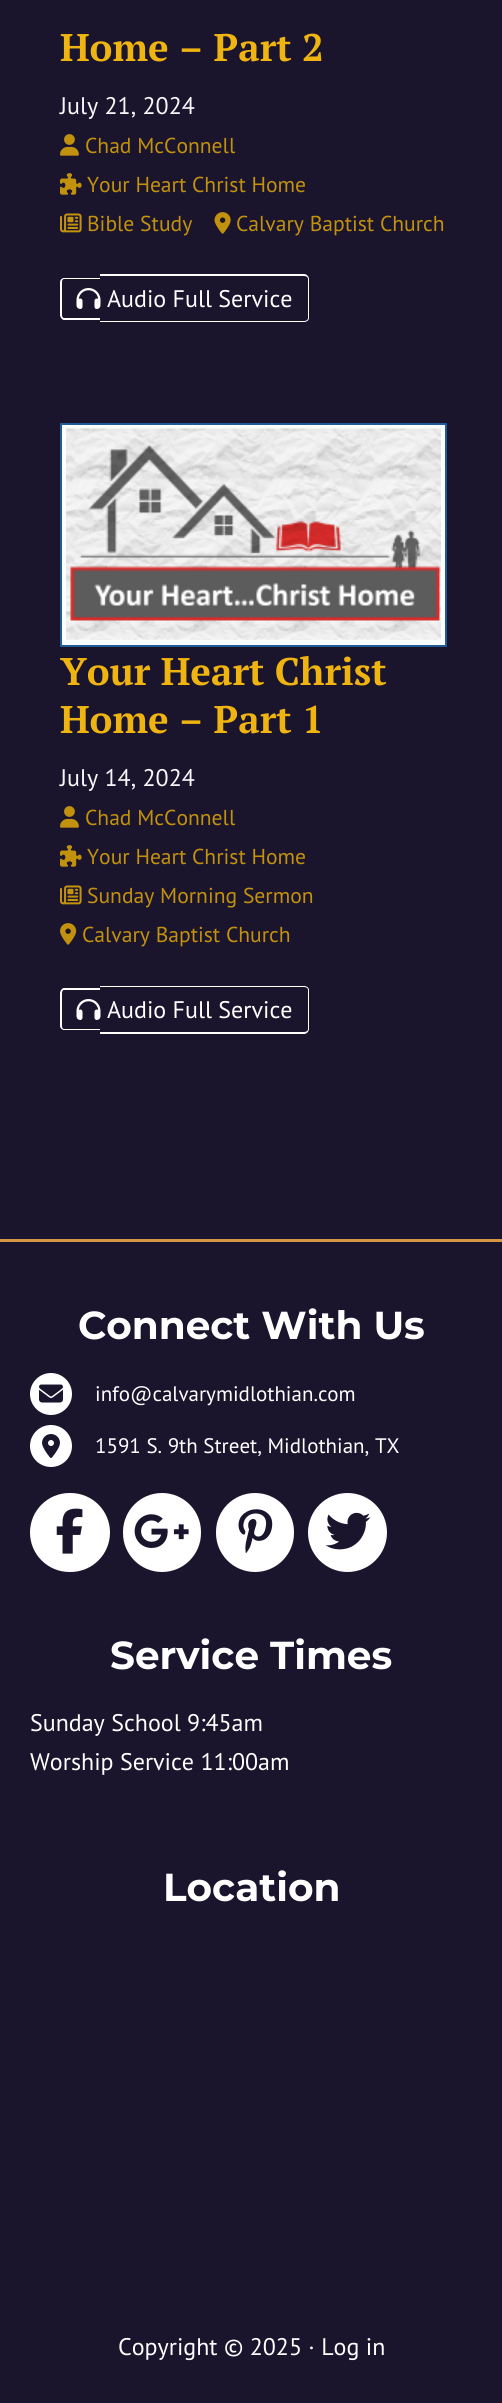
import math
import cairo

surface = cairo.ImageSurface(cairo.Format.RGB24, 502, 2403)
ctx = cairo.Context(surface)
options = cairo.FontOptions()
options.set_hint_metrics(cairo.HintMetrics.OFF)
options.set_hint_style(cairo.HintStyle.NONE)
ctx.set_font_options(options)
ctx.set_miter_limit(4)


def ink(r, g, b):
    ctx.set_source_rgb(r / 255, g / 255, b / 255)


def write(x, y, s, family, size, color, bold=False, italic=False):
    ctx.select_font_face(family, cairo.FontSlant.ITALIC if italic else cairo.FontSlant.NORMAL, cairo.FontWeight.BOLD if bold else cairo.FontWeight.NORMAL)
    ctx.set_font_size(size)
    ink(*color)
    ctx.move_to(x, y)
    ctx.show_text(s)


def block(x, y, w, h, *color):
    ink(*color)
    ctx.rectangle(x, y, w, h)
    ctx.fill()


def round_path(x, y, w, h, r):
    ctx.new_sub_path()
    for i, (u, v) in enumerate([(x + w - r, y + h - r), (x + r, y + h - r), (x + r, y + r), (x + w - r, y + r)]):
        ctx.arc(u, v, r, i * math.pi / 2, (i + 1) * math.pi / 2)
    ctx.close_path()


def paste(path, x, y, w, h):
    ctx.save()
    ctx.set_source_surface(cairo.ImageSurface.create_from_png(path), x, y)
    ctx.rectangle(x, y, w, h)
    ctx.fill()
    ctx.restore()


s1 = dict(family="PT Serif", size=38.5, color=(240, 180, 16), bold=True)
s2 = dict(family="PT Sans", size=24, color=(247, 247, 247))
s3 = dict(family="PT Sans", size=21.6, color=(194, 145, 13))
s4 = dict(family="PT Sans", size=24, color=(255, 255, 255))
s5 = dict(family="Montserrat Thin", size=39, color=(255, 255, 255))
s6 = dict(family="PT Sans", size=21, color=(255, 255, 255))

ink(26, 21, 45)
ctx.paint()
write(60, 61, "Home – Part 2", **s1)
write(60, 114, "July 21, 2024", **s2)
paste("pic1.png", 60, 134, 19, 22)
write(85, 153, "Chad McConnell", **s3)
paste("pic2.png", 60, 173, 22, 22)
write(87, 192, "Your Heart Christ Home", **s3)
paste("pic3.png", 60, 213, 22, 20)
write(87, 231, "Bible Study", **s3)
paste("pic4.png", 214, 212, 17, 22)
write(236, 231, "Calvary Baptist Church", **s3)
ink(255, 255, 255)
ctx.set_fill_rule(cairo.FillRule.EVEN_ODD)
ctx.new_path()
ctx.move_to(64, 278)
ctx.line_to(100, 278)
ctx.line_to(100, 320)
ctx.line_to(64, 320)
ctx.curve_to(62, 320, 60, 317, 60, 315)
ctx.line_to(60, 282)
ctx.curve_to(60, 280, 62, 278, 64, 278)
ctx.close_path()
ctx.move_to(64, 279)
ctx.line_to(100, 279)
ctx.line_to(100, 318)
ctx.line_to(64, 318)
ctx.curve_to(63, 318, 62, 317, 62, 315)
ctx.line_to(62, 282)
ctx.curve_to(62, 280, 63, 279, 64, 279)
ctx.close_path()
ctx.fill()
ctx.new_path()
ctx.move_to(100, 274)
ctx.line_to(304, 274)
ctx.curve_to(307, 274, 309, 277, 309, 279)
ctx.line_to(309, 318)
ctx.curve_to(309, 320, 307, 322, 304, 322)
ctx.line_to(100, 322)
ctx.close_path()
ctx.move_to(100, 276)
ctx.line_to(304, 276)
ctx.curve_to(306, 276, 308, 277, 308, 279)
ctx.line_to(308, 318)
ctx.curve_to(308, 320, 306, 321, 304, 321)
ctx.line_to(100, 321)
ctx.close_path()
ctx.fill()
paste("pic5.png", 76, 288, 25, 21)
write(107, 307, "Audio Full Service", **s4)
ink(251, 254, 255)
ctx.rectangle(61, 424, 385, 222)
ctx.fill_preserve()
ink(32, 91, 150)
ctx.stroke()
paste("pic6.png", 66, 428, 375, 212)
write(60, 685, "Your Heart Christ", **s1)
write(60, 733, "Home – Part 1", **s1)
write(60, 786, "July 14, 2024", **s2)
paste("pic1.png", 60, 806, 19, 22)
write(85, 825, "Chad McConnell", **s3)
paste("pic2.png", 60, 845, 22, 22)
write(87, 864, "Your Heart Christ Home", **s3)
paste("pic3.png", 60, 885, 22, 20)
write(87, 903, "Sunday Morning Sermon", **s3)
paste("pic7.png", 60, 923, 17, 22)
write(82, 942, "Calvary Baptist Church", **s3)
ink(255, 255, 255)
ctx.new_path()
ctx.move_to(64, 988)
ctx.line_to(100, 988)
ctx.line_to(100, 1030)
ctx.line_to(64, 1030)
ctx.curve_to(62, 1030, 60, 1028, 60, 1026)
ctx.line_to(60, 993)
ctx.curve_to(60, 991, 62, 988, 64, 988)
ctx.close_path()
ctx.move_to(64, 990)
ctx.line_to(100, 990)
ctx.line_to(100, 1029)
ctx.line_to(64, 1029)
ctx.curve_to(63, 1029, 62, 1028, 62, 1026)
ctx.line_to(62, 993)
ctx.curve_to(62, 991, 63, 990, 64, 990)
ctx.close_path()
ctx.fill()
ctx.new_path()
ctx.move_to(100, 986)
ctx.line_to(304, 986)
ctx.curve_to(307, 986, 309, 988, 309, 990)
ctx.line_to(309, 1029)
ctx.curve_to(309, 1031, 307, 1034, 304, 1034)
ctx.line_to(100, 1034)
ctx.close_path()
ctx.move_to(100, 987)
ctx.line_to(304, 987)
ctx.curve_to(306, 987, 308, 988, 308, 990)
ctx.line_to(308, 1029)
ctx.curve_to(308, 1031, 306, 1032, 304, 1032)
ctx.line_to(100, 1032)
ctx.close_path()
ctx.fill()
paste("pic5.png", 76, 999, 25, 21)
write(107, 1018, "Audio Full Service", **s4)
block(0, 1239, 502, 3, 214, 151, 68)
write(78, 1339, "Connect With Us", **s5)
ctx.new_path()
ctx.arc(51, 1394, 21, 0, 2 * math.pi)
ctx.fill()
paste("pic8.png", 39, 1384, 24, 19)
write(95, 1401, "info@calvarymidlothian.com", **s6)
ctx.new_path()
ctx.arc(51, 1446, 21, 0, 2 * math.pi)
ctx.fill()
paste("pic9.png", 42, 1434, 18, 24)
write(95, 1453, "1591 S. 9th Street, Midlothian, TX", **s6)
round_path(30, 1493, 80, 79, 39.5)
ctx.fill()
paste("pic10.png", 56, 1508, 27, 46)
round_path(123, 1493, 78, 79, 39)
ctx.fill()
paste("pic11.png", 134, 1514, 55, 34)
round_path(216, 1493, 78, 79, 39)
ctx.fill()
paste("pic12.png", 238, 1509, 35, 44)
ctx.arc(347.5, 1532.5, 39.5, 0, 2 * math.pi)
ctx.fill()
paste("pic13.png", 325, 1512, 46, 38)
write(110, 1669, "Service Times", **s5)
write(30, 1731, "Sunday School 9:45am", **s4)
write(30, 1770, "Worship Service 11:00am", **s4)
write(163, 1901, "Location", **s5)
write(118, 2355, "Copyright © 2025 · Log in", **s4)
surface.write_to_png("screenshot.png")
